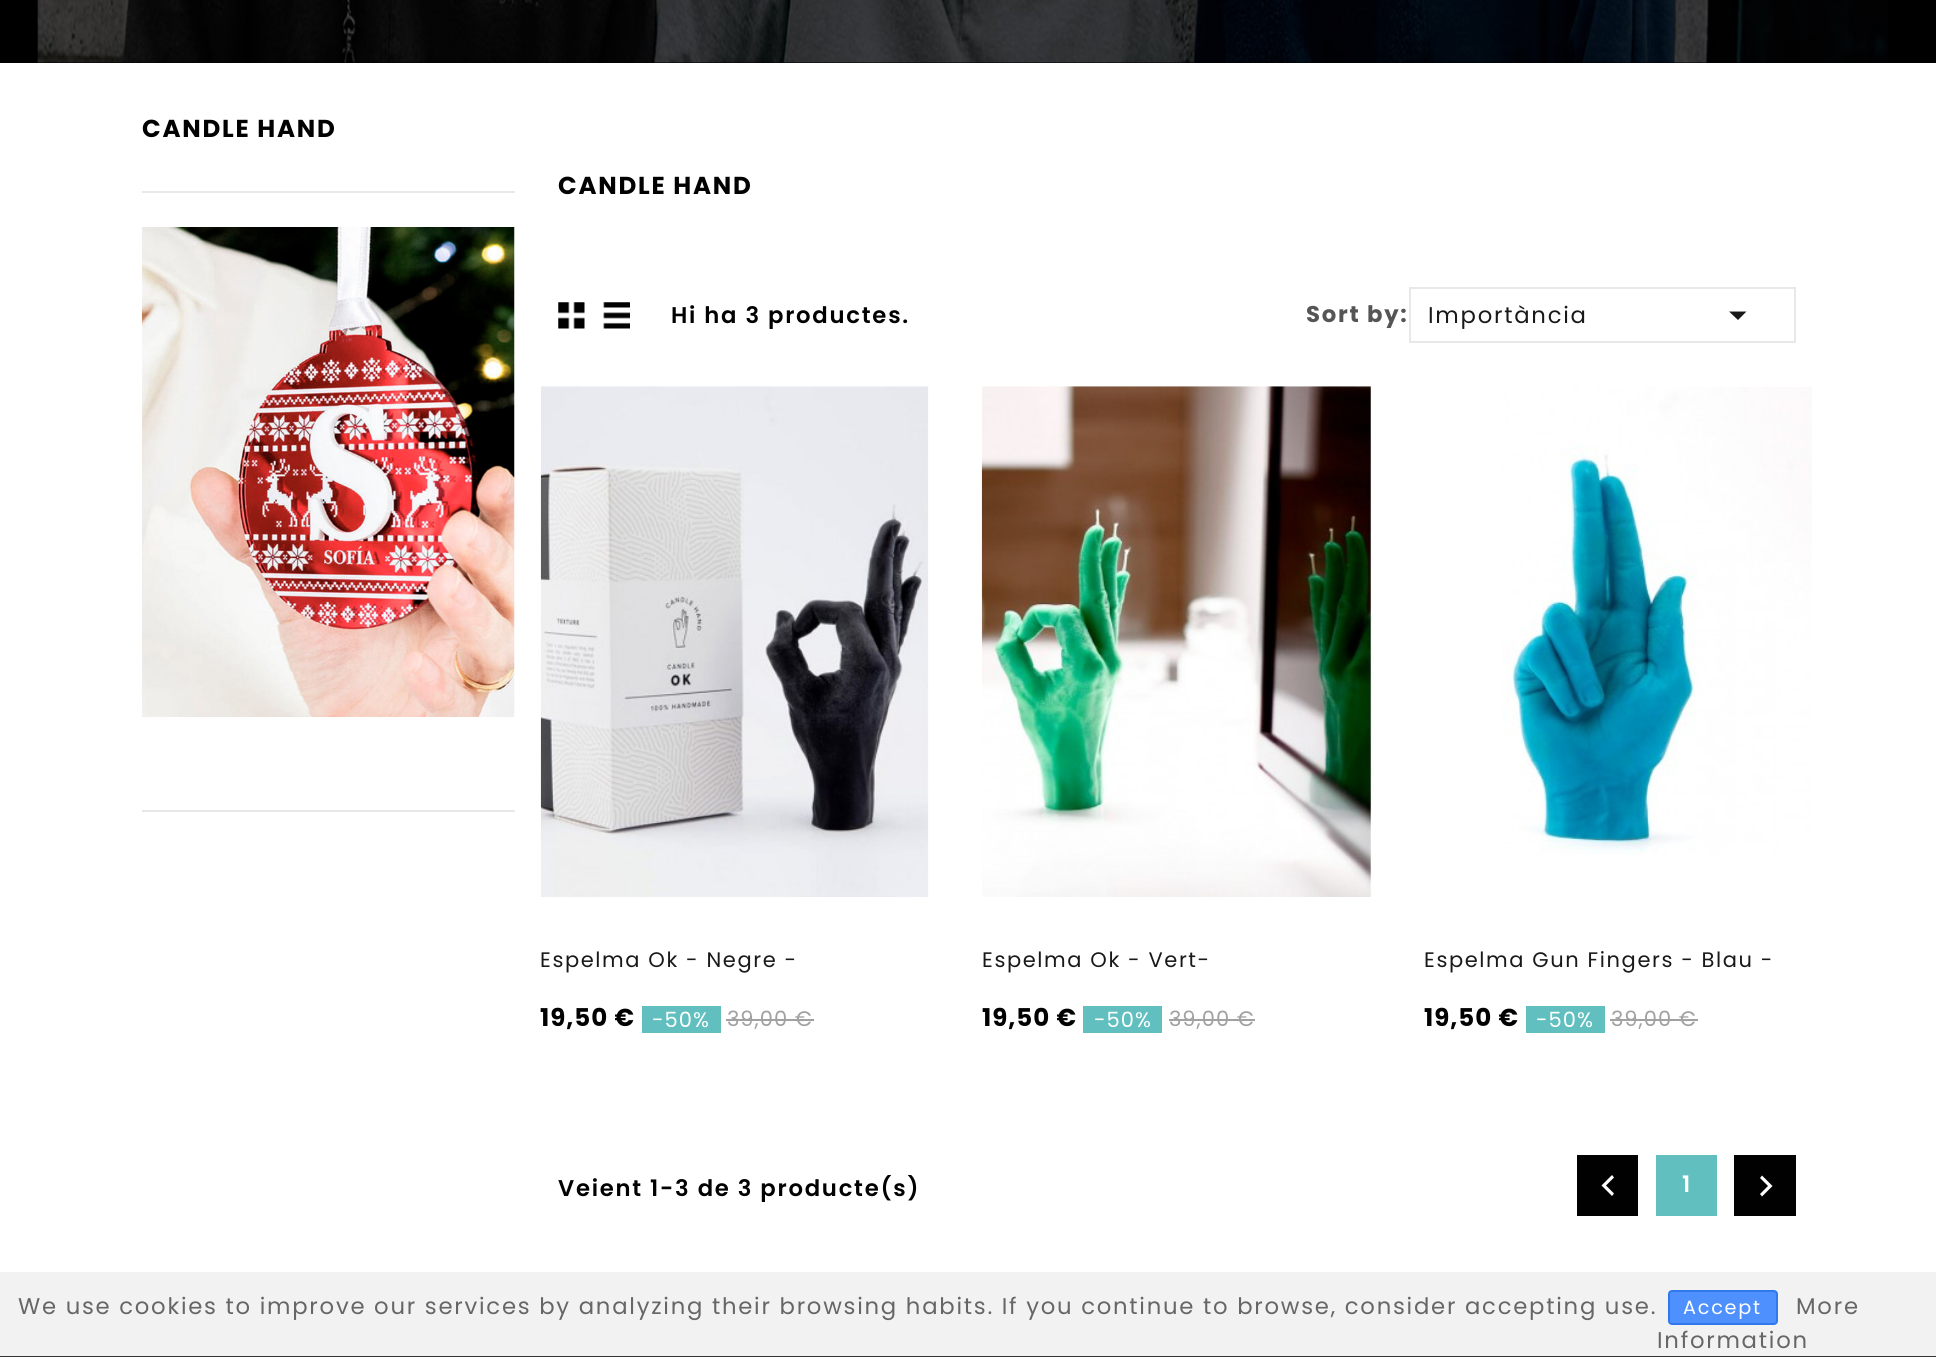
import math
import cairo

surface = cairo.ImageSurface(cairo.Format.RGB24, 1936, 1357)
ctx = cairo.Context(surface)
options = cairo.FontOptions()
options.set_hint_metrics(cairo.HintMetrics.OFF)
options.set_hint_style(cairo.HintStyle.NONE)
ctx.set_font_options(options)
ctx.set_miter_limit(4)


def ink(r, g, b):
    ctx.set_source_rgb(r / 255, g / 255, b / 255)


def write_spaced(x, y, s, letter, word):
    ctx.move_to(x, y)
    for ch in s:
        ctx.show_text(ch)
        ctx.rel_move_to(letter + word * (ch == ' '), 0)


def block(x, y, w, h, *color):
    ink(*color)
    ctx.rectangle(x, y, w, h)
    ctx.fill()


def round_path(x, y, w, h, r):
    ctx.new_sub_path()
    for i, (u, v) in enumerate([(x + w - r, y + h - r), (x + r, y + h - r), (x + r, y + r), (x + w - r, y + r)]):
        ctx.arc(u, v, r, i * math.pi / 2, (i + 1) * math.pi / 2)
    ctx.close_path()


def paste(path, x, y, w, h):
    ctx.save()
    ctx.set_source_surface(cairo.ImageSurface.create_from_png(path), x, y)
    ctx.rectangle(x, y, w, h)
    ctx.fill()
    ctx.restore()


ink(255, 255, 255)
ctx.paint()
block(0, 0, 1936, 63, 0, 0, 0)
paste("pic1.png", 37, 0, 1851, 63)
block(142, 191, 373, 2, 232, 232, 232)
ctx.select_font_face("Poppins", cairo.FontSlant.NORMAL, cairo.FontWeight.BOLD)
ctx.set_font_size(24.5)
ink(1, 1, 1)
write_spaced(142, 137, "CANDLE HAND", 1.75, 0)
paste("pic2.png", 141, 227, 374, 490)
block(142, 810, 373, 2, 232, 232, 232)
ink(1, 1, 1)
write_spaced(558, 194, "CANDLE HAND", 1.75, 0)
paste("pic3.png", 558, 302, 27, 27)
paste("pic4.png", 603, 302, 27, 27)
ctx.select_font_face("Poppins SemiBold")
ctx.set_font_size(22.75)
write_spaced(671, 323, "Hi ha 3 productes.", 1.75, 0)
ctx.select_font_face("Poppins", cairo.FontSlant.NORMAL, cairo.FontWeight.BOLD)
ink(85, 85, 85)
write_spaced(1306, 322, "Sort by:", 1.75, 0)
ctx.rectangle(1410, 288, 385, 54)
ink(232, 232, 232)
ctx.stroke()
ctx.select_font_face("Poppins")
ink(25, 25, 25)
write_spaced(1428, 323, "Importància", 1.75, 0)
ctx.new_path()
ctx.move_to(1729, 311.5)
ctx.line_to(1746.5, 311.5)
ctx.line_to(1738, 320)
ctx.close_path()
ctx.fill()
paste("pic5.png", 540, 386, 389, 511)
ctx.set_font_size(21)
write_spaced(540, 967, "Espelma Ok - Negre -", 1.6, 0)
ctx.select_font_face("Poppins", cairo.FontSlant.NORMAL, cairo.FontWeight.BOLD)
ctx.set_font_size(24.5)
ink(1, 1, 1)
write_spaced(540, 1026, "19,50 €", 1, 0)
block(642, 1006, 79, 27, 97, 192, 191)
ctx.select_font_face("Poppins")
ctx.set_font_size(21)
ink(255, 255, 255)
write_spaced(652, 1027, "-50%", 1, 0)
ink(161, 161, 161)
write_spaced(727, 1026, "39,00 €", 1, 0)
block(726, 1019, 88, 2, 161, 161, 161)
paste("pic6.png", 981, 386, 391, 511)
ink(25, 25, 25)
write_spaced(982, 967, "Espelma Ok - Vert-", 1.6, 0)
ctx.select_font_face("Poppins", cairo.FontSlant.NORMAL, cairo.FontWeight.BOLD)
ctx.set_font_size(24.5)
ink(1, 1, 1)
write_spaced(982, 1026, "19,50 €", 1, 0)
block(1083, 1006, 79, 27, 97, 192, 191)
ctx.select_font_face("Poppins")
ctx.set_font_size(21)
ink(255, 255, 255)
write_spaced(1094, 1027, "-50%", 1, 0)
ink(161, 161, 161)
write_spaced(1169, 1026, "39,00 €", 1, 0)
block(1169, 1019, 86, 2, 161, 161, 161)
paste("pic7.png", 1502, 387, 310, 468)
ink(25, 25, 25)
write_spaced(1424, 967, "Espelma Gun Fingers - Blau -", 1.6, 0)
ctx.select_font_face("Poppins", cairo.FontSlant.NORMAL, cairo.FontWeight.BOLD)
ctx.set_font_size(24.5)
ink(1, 1, 1)
write_spaced(1424, 1026, "19,50 €", 1, 0)
block(1526, 1006, 79, 27, 97, 192, 191)
ctx.select_font_face("Poppins")
ctx.set_font_size(21)
ink(255, 255, 255)
write_spaced(1536, 1027, "-50%", 1, 0)
ink(161, 161, 161)
write_spaced(1611, 1026, "39,00 €", 1, 0)
block(1610, 1019, 88, 2, 161, 161, 161)
ctx.select_font_face("Poppins SemiBold")
ctx.set_font_size(22.75)
ink(1, 1, 1)
write_spaced(558, 1196, "Veient 1-3 de 3 producte(s)", 1.75, 0)
block(1577, 1155, 61, 61, 1, 1, 1)
ink(255, 255, 255)
ctx.new_path()
ctx.move_to(1614, 1193.5)
ctx.line_to(1612, 1196)
ctx.line_to(1601.5, 1185.5)
ctx.line_to(1612, 1175)
ctx.line_to(1614, 1177.5)
ctx.line_to(1606, 1185.5)
ctx.close_path()
ctx.fill()
block(1656, 1155, 61, 61, 97, 192, 191)
ink(255, 255, 255)
write_spaced(1682, 1192, "1", 1.75, 0)
block(1734, 1155, 62, 61, 1, 1, 1)
ink(255, 255, 255)
ctx.new_path()
ctx.move_to(1760, 1194)
ctx.line_to(1768, 1186)
ctx.line_to(1760, 1178)
ctx.line_to(1762, 1175.5)
ctx.line_to(1772.5, 1186)
ctx.line_to(1762, 1196.5)
ctx.close_path()
ctx.fill()
block(0, 1272, 1936, 84, 242, 242, 242)
block(0, 1356, 1936, 1, 51, 51, 51)
ctx.select_font_face("Poppins")
ink(102, 102, 102)
write_spaced(18, 1314, "We use cookies to improve our services by analyzing their browsing habits. If you continue to browse, consider accepting use.", 1.75, 0)
ink(77, 144, 254)
round_path(1669, 1291, 108, 33, 3)
ctx.fill_preserve()
ink(48, 121, 237)
ctx.stroke()
ctx.set_font_size(19.25)
ink(255, 255, 255)
write_spaced(1683, 1314, "Accept", 1.75, 0)
ctx.set_font_size(22.75)
ink(102, 102, 102)
write_spaced(1796, 1314, "More", 1.75, 0)
write_spaced(1657, 1348, "Information", 1.75, 0)
surface.write_to_png("screenshot.png")
